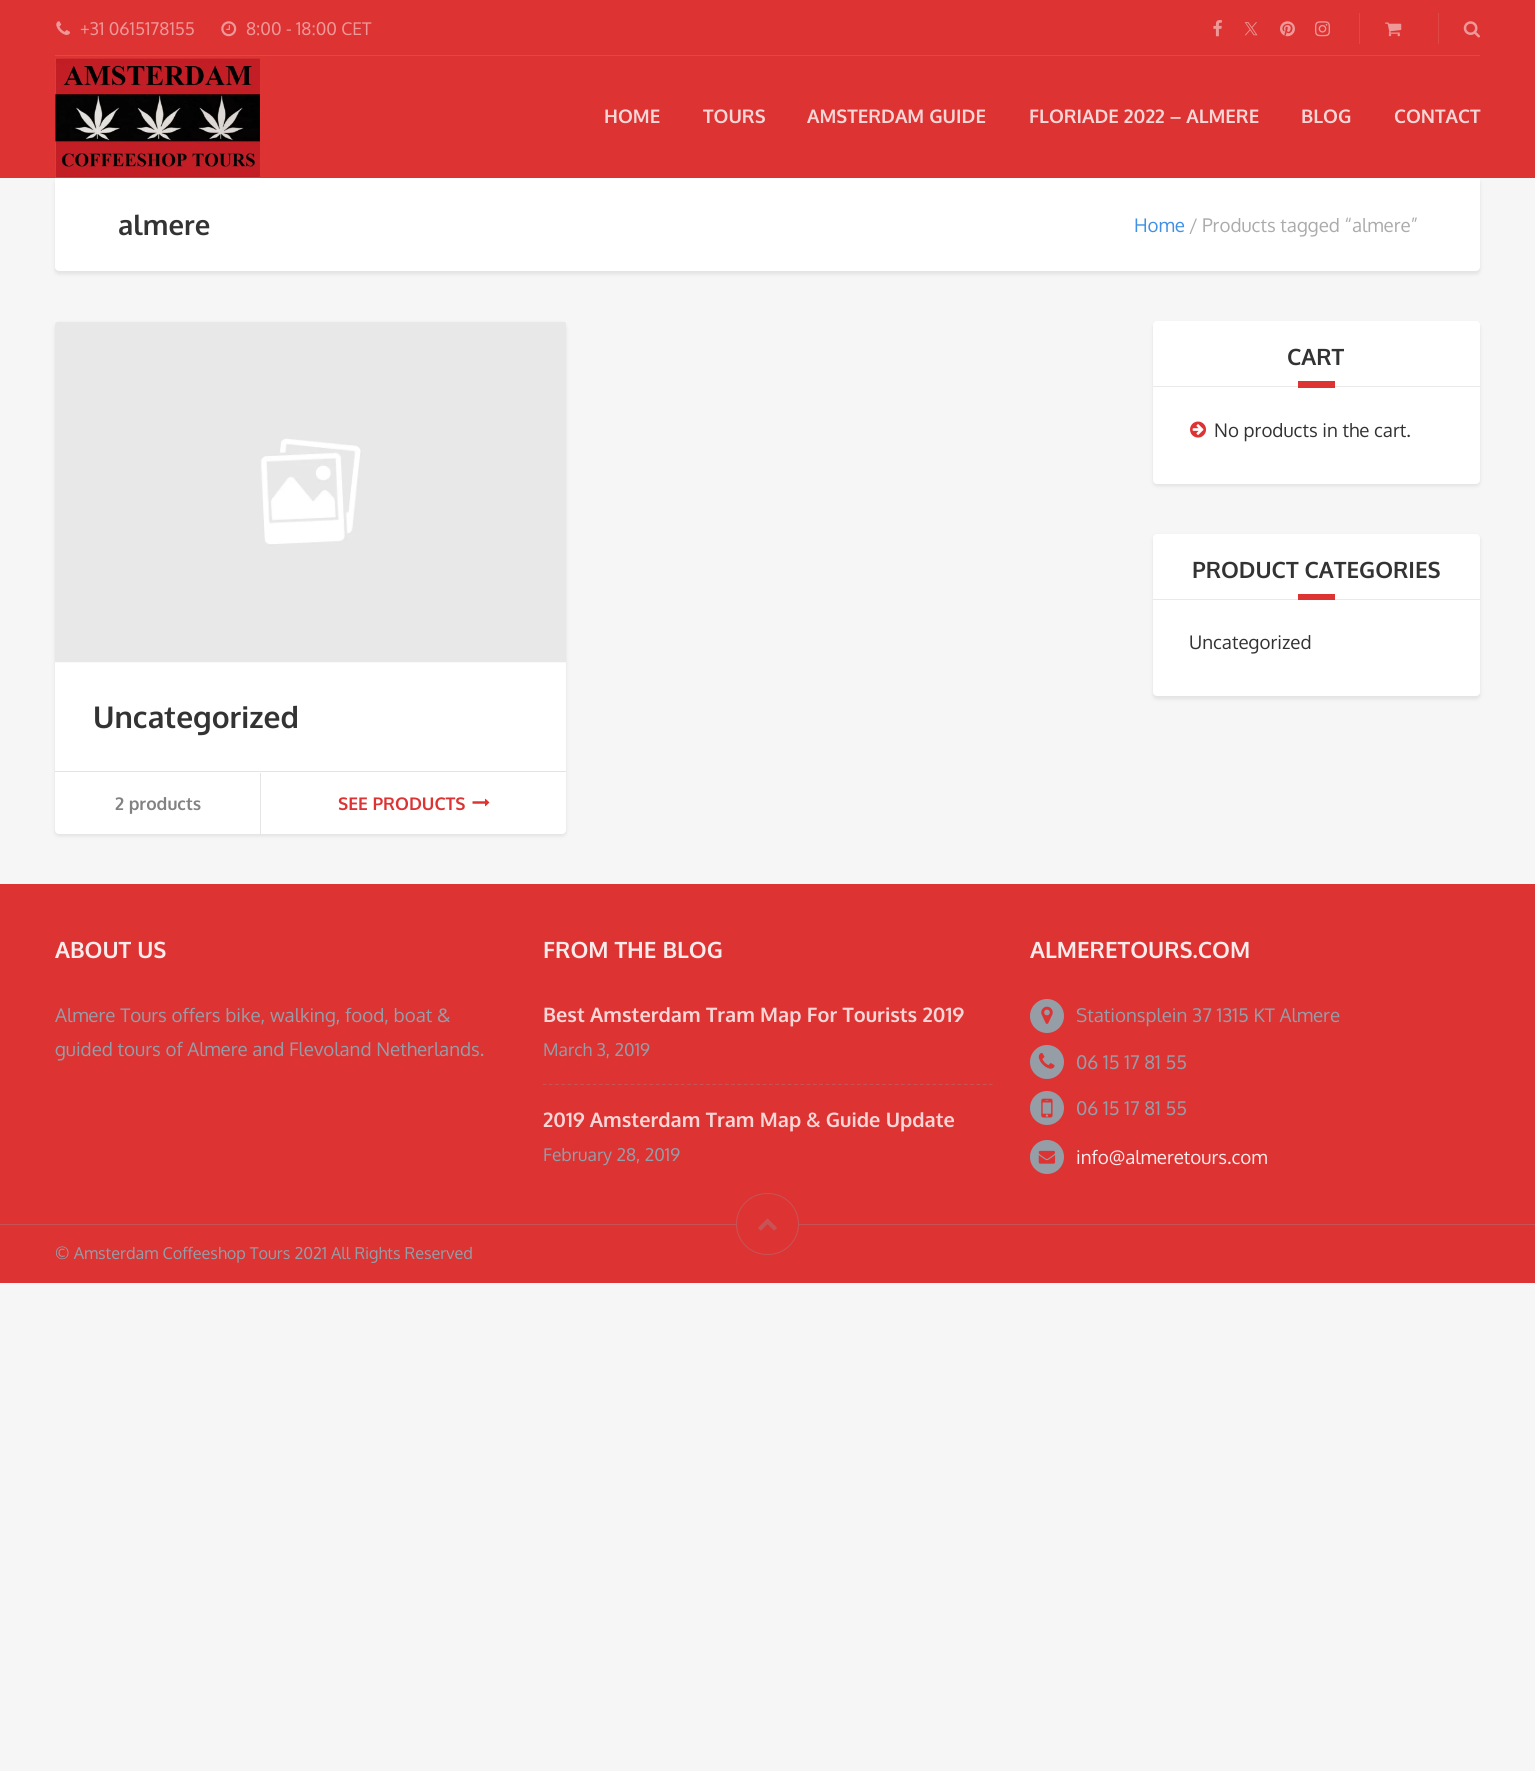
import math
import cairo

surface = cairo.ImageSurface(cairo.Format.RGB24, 1535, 1771)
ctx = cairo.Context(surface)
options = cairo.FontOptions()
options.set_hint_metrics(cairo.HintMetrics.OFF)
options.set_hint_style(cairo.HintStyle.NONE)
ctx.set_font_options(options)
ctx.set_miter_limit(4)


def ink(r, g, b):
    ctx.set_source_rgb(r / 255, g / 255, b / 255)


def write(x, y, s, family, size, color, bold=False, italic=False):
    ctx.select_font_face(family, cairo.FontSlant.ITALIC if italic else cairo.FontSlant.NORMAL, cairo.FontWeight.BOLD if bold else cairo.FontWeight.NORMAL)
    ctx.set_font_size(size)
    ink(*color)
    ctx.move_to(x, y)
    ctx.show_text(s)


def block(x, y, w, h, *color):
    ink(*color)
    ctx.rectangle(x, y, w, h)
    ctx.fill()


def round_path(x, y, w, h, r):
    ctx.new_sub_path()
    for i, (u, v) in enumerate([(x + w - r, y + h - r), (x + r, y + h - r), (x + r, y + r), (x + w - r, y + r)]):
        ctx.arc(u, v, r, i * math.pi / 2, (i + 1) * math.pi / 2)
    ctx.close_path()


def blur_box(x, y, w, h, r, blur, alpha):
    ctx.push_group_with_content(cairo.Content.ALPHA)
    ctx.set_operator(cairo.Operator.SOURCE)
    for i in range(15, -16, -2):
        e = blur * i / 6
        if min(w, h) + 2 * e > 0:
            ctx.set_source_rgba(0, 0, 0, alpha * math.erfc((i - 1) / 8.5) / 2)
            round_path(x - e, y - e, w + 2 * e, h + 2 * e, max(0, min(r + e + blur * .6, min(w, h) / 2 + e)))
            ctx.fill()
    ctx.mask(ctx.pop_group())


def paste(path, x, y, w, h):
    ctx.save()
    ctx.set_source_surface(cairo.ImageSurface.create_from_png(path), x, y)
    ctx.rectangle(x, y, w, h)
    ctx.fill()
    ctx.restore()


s1 = dict(family="Oxygen", size=17.5, color=(238, 153, 153))
s2 = dict(family="Oxygen", size=18.75, color=(248, 214, 214), bold=True)
s3 = dict(family="Oxygen", size=27.5, color=(51, 51, 51), bold=True)
s4 = dict(family="Oxygen", size=18.75, color=(64, 144, 229))
s5 = dict(family="Oxygen", size=18.75, color=(171, 171, 171))
s6 = dict(family="Oxygen", size=22.5, color=(51, 51, 51), bold=True)
s7 = dict(family="Oxygen", size=18.75, color=(51, 51, 51))
s8 = dict(family="Oxygen", size=30, color=(51, 51, 51), bold=True)
s9 = dict(family="Oxygen", size=17.5, color=(130, 130, 130), bold=True)
s10 = dict(family="Oxygen", size=17.5, color=(221, 51, 51), bold=True)
s11 = dict(family="Oxygen", size=22.5, color=(252, 235, 235), bold=True)
s12 = dict(family="Oxygen", size=18.75, color=(149, 157, 167))
s13 = dict(family="Oxygen", size=20, color=(248, 214, 214), bold=True)
s14 = dict(family="Oxygen", size=17.5, color=(149, 157, 167))
s15 = dict(family="Oxygen", size=18.75, color=(252, 235, 235))
s16 = dict(family="Oxygen", size=16.25, color=(149, 157, 167))

ink(246, 246, 246)
ctx.paint()
block(0, 0, 1535, 178, 221, 51, 51)
paste("pic1.png", 56, 21, 14, 14)
write(80, 35, "+31 0615178155", **s1)
paste("pic2.png", 221, 21, 16, 16)
write(246, 35, "8:00 - 18:00 CET", **s1)
paste("pic3.png", 1213, 20, 9, 17)
paste("pic4.png", 1244, 22, 14, 14)
paste("pic5.png", 1280, 21, 15, 16)
paste("pic6.png", 1315, 21, 15, 16)
block(1359, 13, 1, 31, 224, 71, 71)
paste("pic7.png", 1385, 22, 17, 15)
block(1438, 13, 1, 31, 224, 71, 71)
paste("pic8.png", 1463, 21, 17, 17)
block(55, 55, 1425, 1, 224, 71, 71)
paste("pic9.png", 55, 58, 205, 120)
write(604, 123, "HOME", **s2)
write(703, 123, "TOURS", **s2)
write(807, 123, "AMSTERDAM GUIDE", **s2)
write(1029, 123, "FLORIADE 2022 – ALMERE", **s2)
write(1301, 123, "BLOG", **s2)
write(1394, 123, "CONTACT", **s2)
ink(0, 0, 0)
blur_box(55, 180, 1425, 94, 4, 2, 0.09)
ink(255, 255, 255)
ctx.new_path()
ctx.move_to(55, 178)
ctx.line_to(1480, 178)
ctx.line_to(1480, 267)
ctx.curve_to(1480, 269, 1478, 271, 1476, 271)
ctx.line_to(59, 271)
ctx.curve_to(57, 271, 55, 269, 55, 267)
ctx.close_path()
ctx.fill()
write(118, 235, "almere", **s3)
write(1134, 232, "Home", **s4)
write(1189, 232, "/", **s5)
write(1202, 232, "Products tagged “almere”", **s5)
ink(0, 0, 0)
blur_box(1153, 324, 327, 162, 4, 2, 0.09)
ink(255, 255, 255)
round_path(1153, 321, 327, 163, 4)
ctx.fill()
block(1153, 386, 327, 1, 233, 233, 233)
write(1287, 365, "CART", **s6)
block(1298, 381, 37, 7, 221, 51, 51)
paste("pic10.png", 1190, 421, 17, 17)
write(1214, 437, "No products in the cart.", **s7)
ink(0, 0, 0)
blur_box(1153, 536, 327, 163, 4, 2, 0.09)
ink(255, 255, 255)
round_path(1153, 534, 327, 162, 4)
ctx.fill()
block(1153, 599, 327, 1, 233, 233, 233)
write(1192, 578, "PRODUCT CATEGORIES", **s6)
block(1298, 594, 37, 6, 221, 51, 51)
write(1189, 649, "Uncategorized", **s7)
ink(0, 0, 0)
blur_box(55, 324, 511, 512, 4, 2, 0.09)
ink(255, 255, 255)
round_path(55, 321, 511, 513, 4)
ctx.fill()
paste("pic11.png", 55, 321, 511, 342)
write(93, 728, "Uncategorized", **s8)
block(55, 771, 511, 1, 228, 228, 228)
block(260, 773, 1, 61, 228, 228, 228)
write(115, 810, "2 products", **s9)
write(338, 810, "SEE PRODUCTS", **s10)
paste("pic12.png", 472, 798, 18, 9)
block(0, 884, 1535, 399, 221, 51, 51)
write(55, 958, "ABOUT US", **s11)
write(55, 1022, "Almere Tours offers bike, walking, food, boat &", **s12)
write(55, 1056, "guided tours of Almere and Flevoland Netherlands.", **s12)
write(543, 958, "FROM THE BLOG", **s11)
write(543, 1022, "Best Amsterdam Tram Map For Tourists 2019", **s13)
write(543, 1056, "March 3, 2019", **s14)
ctx.save()
ctx.rectangle(543, 999, 450, 86)
ctx.clip()
ctx.new_path()
ctx.move_to(542.5, 1084.5)
ctx.line_to(992.5, 1084.5)
ink(199, 83, 86)
ctx.set_line_width(1.2)
ctx.set_dash([3.75, 2.54])
ctx.stroke()
ctx.restore()
write(543, 1127, "2019 Amsterdam Tram Map & Guide Update", **s13)
write(543, 1161, "February 28, 2019", **s14)
write(1030, 958, "ALMERETOURS.COM", **s11)
ink(149, 157, 167)
ctx.new_path()
ctx.arc(1047, 1016, 17, 0, 2 * math.pi)
ctx.fill()
paste("pic13.png", 1041, 1006, 12, 18)
write(1076, 1022, "Stationsplein 37 1315 KT Almere", **s12)
ctx.new_path()
ctx.arc(1047, 1062, 17, 0, 2 * math.pi)
ctx.fill()
paste("pic14.png", 1038, 1053, 17, 16)
write(1076, 1069, "06 15 17 81 55", **s12)
ctx.new_path()
ctx.arc(1047, 1108, 17, 0, 2 * math.pi)
ctx.fill()
paste("pic15.png", 1041, 1098, 12, 20)
write(1076, 1115, "06 15 17 81 55", **s12)
ctx.new_path()
ctx.arc(1047, 1157, 17, 0, 2 * math.pi)
ctx.fill()
paste("pic16.png", 1038, 1150, 18, 14)
write(1076, 1164, "info@almeretours.com", **s15)
block(0, 1224, 1535, 1, 199, 83, 86)
ink(221, 51, 51)
round_path(736.5, 1193.5, 62, 61, 30.5)
ctx.fill_preserve()
ink(199, 83, 86)
ctx.set_line_width(1)
ctx.stroke()
paste("pic17.png", 758, 1218, 19, 13)
write(55, 1259, "© Amsterdam Coffeeshop Tours 2021 All Rights Reserved", **s16)
surface.write_to_png("screenshot.png")
